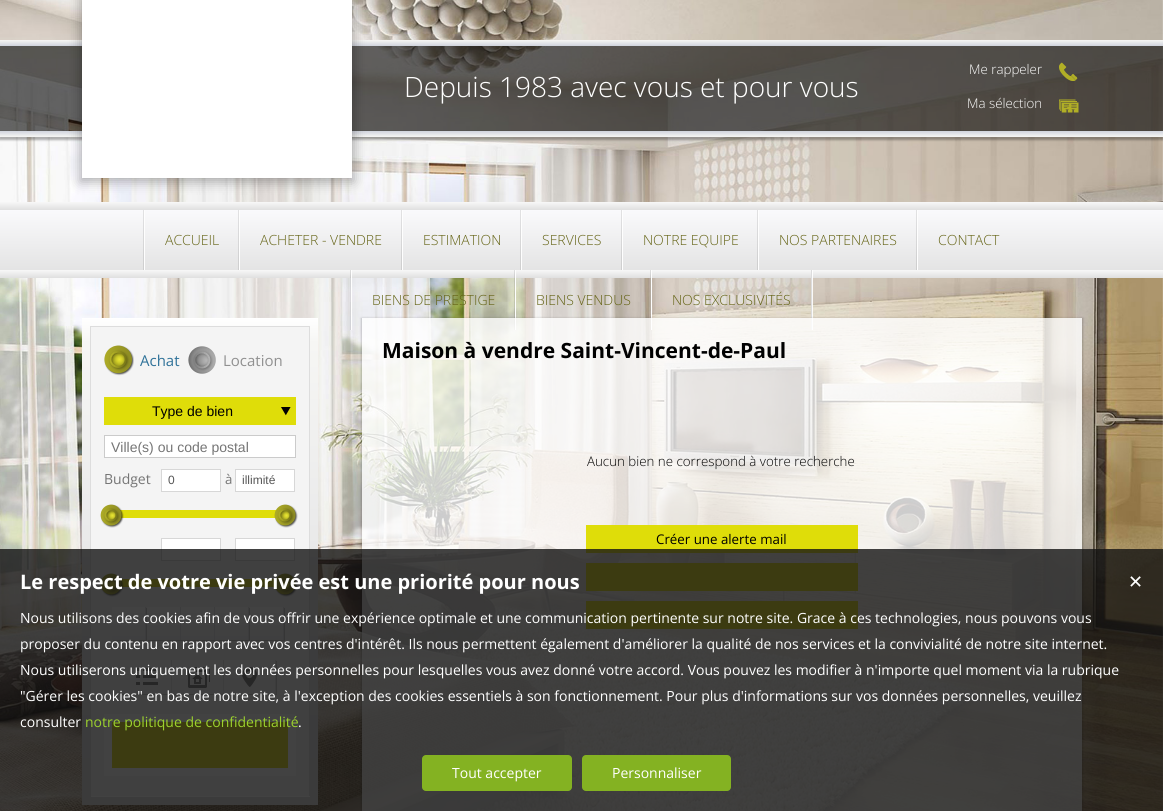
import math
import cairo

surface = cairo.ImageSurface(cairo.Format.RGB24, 1163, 811)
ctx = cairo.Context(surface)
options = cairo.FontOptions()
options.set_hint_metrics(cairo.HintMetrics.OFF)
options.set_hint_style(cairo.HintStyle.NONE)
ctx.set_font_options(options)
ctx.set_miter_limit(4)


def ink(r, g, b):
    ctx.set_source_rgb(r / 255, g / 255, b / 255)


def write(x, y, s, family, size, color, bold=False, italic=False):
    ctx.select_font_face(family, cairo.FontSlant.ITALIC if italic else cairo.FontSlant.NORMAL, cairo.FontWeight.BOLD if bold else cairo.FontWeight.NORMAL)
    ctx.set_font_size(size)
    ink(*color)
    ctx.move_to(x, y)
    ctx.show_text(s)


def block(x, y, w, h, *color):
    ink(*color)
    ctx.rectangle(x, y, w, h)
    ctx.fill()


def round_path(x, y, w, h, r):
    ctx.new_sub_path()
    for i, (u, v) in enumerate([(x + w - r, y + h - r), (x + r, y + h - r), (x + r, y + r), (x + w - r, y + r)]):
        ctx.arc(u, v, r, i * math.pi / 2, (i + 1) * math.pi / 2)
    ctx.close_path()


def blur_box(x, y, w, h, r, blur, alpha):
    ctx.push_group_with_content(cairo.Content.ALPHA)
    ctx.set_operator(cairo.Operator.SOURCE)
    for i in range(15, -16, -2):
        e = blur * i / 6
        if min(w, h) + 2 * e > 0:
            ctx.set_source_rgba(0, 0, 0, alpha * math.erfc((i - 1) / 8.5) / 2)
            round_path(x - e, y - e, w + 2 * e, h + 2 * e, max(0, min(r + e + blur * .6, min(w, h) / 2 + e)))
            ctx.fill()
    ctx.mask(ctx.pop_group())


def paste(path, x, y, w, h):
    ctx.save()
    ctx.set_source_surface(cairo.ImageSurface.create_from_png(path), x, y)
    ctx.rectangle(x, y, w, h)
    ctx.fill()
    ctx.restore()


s1 = dict(family="Open Sans Light", size=28, color=(255, 255, 255))
s2 = dict(family="Open Sans Light", size=13.3, color=(255, 255, 255))
s3 = dict(family="Open Sans Light", size=14, color=(101, 100, 22))
s4 = dict(family="Open Sans", size=15, color=(47, 114, 153))
s5 = dict(family="Open Sans", size=15, color=(144, 144, 144))
s6 = dict(family="Liberation Sans", size=14, color=(0, 0, 0))
s7 = dict(family="Liberation Sans", size=14, color=(117, 117, 117))
s8 = dict(family="Open Sans", size=14, color=(117, 117, 117))
s9 = dict(family="Liberation Sans", size=12, color=(85, 85, 85))
s10 = dict(family="Open Sans", size=13.3, color=(117, 117, 117))
s11 = dict(family="Open Sans", size=21, color=(0, 0, 0), bold=True)
s12 = dict(family="Open Sans Light", size=13.3, color=(0, 0, 0))
s13 = dict(family="Open Sans", size=13.3, color=(0, 0, 0))
s14 = dict(family="Open Sans", size=20, color=(255, 255, 255), bold=True)
s15 = dict(family="DejaVu Sans", size=18, color=(255, 255, 255))
s16 = dict(family="Open Sans", size=14, color=(255, 255, 255))
s17 = dict(family="Open Sans", size=14, color=(156, 210, 46))

ink(255, 255, 255)
ctx.paint()
paste("pic1.png", 0, 0, 1163, 811)
gradient = cairo.LinearGradient(582, 40, 582, 46)
gradient.add_color_stop_rgba(0, 0.965, 0.965, 0.957, 1)
gradient.add_color_stop_rgba(1, 0.816, 0.831, 0.867, 1)
ctx.set_source(gradient)
ctx.rectangle(0, 40, 1163, 6)
ctx.fill()
ctx.set_source_rgba(0, 0, 0, 0.6)
ctx.rectangle(0, 46, 1163, 85)
ctx.fill()
ink(0, 0, 0)
blur_box(-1, 132, 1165, 8, 0, 1, 0.3)
gradient = cairo.LinearGradient(582, 131, 582, 137)
gradient.add_color_stop_rgba(0, 0.816, 0.831, 0.867, 1)
gradient.add_color_stop_rgba(1, 0.965, 0.965, 0.957, 1)
ctx.set_source(gradient)
ctx.rectangle(0, 131, 1163, 6)
ctx.fill()
ink(0, 0, 0)
blur_box(80, -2, 274, 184, 0, 6, 0.3)
block(82, 0, 270, 178, 255, 255, 255)
write(404, 97, "Depuis 1983 avec vous et pour vous", **s1)
write(969, 74, "Me rappeler", **s2)
paste("pic2.png", 1059, 62, 19, 19)
write(967, 108, "Ma sélection", **s2)
paste("pic3.png", 1059, 99, 20, 14)
gradient = cairo.LinearGradient(582, 202, 582, 278)
gradient.add_color_stop_rgba(0, 0.992, 0.992, 1, 1)
gradient.add_color_stop_rgba(1, 0.882, 0.882, 0.882, 1)
ctx.set_source(gradient)
ctx.rectangle(0, 210, 1163, 60)
ctx.fill()
gradient = cairo.LinearGradient(582, 202, 582, 210)
gradient.add_color_stop_rgba(0, 0.969, 0.969, 0.969, 1)
gradient.add_color_stop_rgba(1, 0.875, 0.875, 0.875, 1)
ctx.set_source(gradient)
ctx.rectangle(0, 202, 1163, 8)
ctx.fill()
ctx.set_source_rgba(0, 0, 0, 0.1)
ctx.rectangle(143, 210, 1, 60)
ctx.fill()
block(144, 210, 1, 60, 254, 254, 254)
write(165, 245, "ACCUEIL", **s3)
ctx.set_source_rgba(0, 0, 0, 0.1)
ctx.rectangle(238, 210, 1, 60)
ctx.fill()
block(239, 210, 1, 60, 254, 254, 254)
write(260, 245, "ACHETER - VENDRE", **s3)
ctx.set_source_rgba(0, 0, 0, 0.1)
ctx.rectangle(401, 210, 1, 60)
ctx.fill()
block(402, 210, 1, 60, 254, 254, 254)
write(423, 245, "ESTIMATION", **s3)
ctx.set_source_rgba(0, 0, 0, 0.1)
ctx.rectangle(520, 210, 1, 60)
ctx.fill()
block(521, 210, 1, 60, 254, 254, 254)
write(542, 245, "SERVICES", **s3)
ctx.set_source_rgba(0, 0, 0, 0.1)
ctx.rectangle(621, 210, 1, 60)
ctx.fill()
block(622, 210, 1, 60, 254, 254, 254)
write(643, 245, "NOTRE EQUIPE", **s3)
ctx.set_source_rgba(0, 0, 0, 0.1)
ctx.rectangle(757, 210, 1, 60)
ctx.fill()
block(758, 210, 1, 60, 254, 254, 254)
write(779, 245, "NOS PARTENAIRES", **s3)
ctx.set_source_rgba(0, 0, 0, 0.1)
ctx.rectangle(916, 210, 1, 60)
ctx.fill()
block(917, 210, 1, 60, 254, 254, 254)
write(938, 245, "CONTACT", **s3)
gradient = cairo.LinearGradient(582, 270, 582, 278)
gradient.add_color_stop_rgba(0, 0.969, 0.969, 0.969, 1)
gradient.add_color_stop_rgba(1, 0.875, 0.875, 0.875, 1)
ctx.set_source(gradient)
ctx.rectangle(0, 270, 1163, 8)
ctx.fill()
ctx.set_source_rgba(0, 0, 0, 0.1)
ctx.rectangle(350, 270, 1, 60)
ctx.fill()
block(351, 270, 1, 60, 254, 254, 254)
write(372, 305, "BIENS DE PRESTIGE", **s3)
ctx.set_source_rgba(0, 0, 0, 0.1)
ctx.rectangle(514, 270, 1, 60)
ctx.fill()
block(515, 270, 1, 60, 254, 254, 254)
write(536, 305, "BIENS VENDUS", **s3)
ctx.set_source_rgba(0, 0, 0, 0.1)
ctx.rectangle(650, 270, 1, 60)
ctx.fill()
block(651, 270, 1, 60, 254, 254, 254)
write(672, 305, "NOS EXCLUSIVITÉS", **s3)
ctx.set_source_rgba(1, 1, 1, 0.9)
ctx.rectangle(812, 270, 1, 60)
ctx.fill()
block(811, 270, 1, 60, 220, 220, 221)
gradient = cairo.LinearGradient(200, 318, 200, 805)
gradient.add_color_stop_rgba(0, 1, 1, 1, 1)
gradient.add_color_stop_rgba(0.05, 0.965, 0.965, 0.957, 1)
gradient.add_color_stop_rgba(0.96, 0.855, 0.855, 0.867, 1)
gradient.add_color_stop_rgba(1, 0.855, 0.855, 0.855, 1)
ctx.set_source(gradient)
ctx.rectangle(82, 318, 236, 487)
ctx.fill()
block(91, 327, 218, 469, 244, 244, 244)
block(90, 326, 220, 1, 221, 221, 221)
block(309, 326, 1, 471, 221, 221, 221)
block(90, 796, 220, 1, 255, 255, 255)
block(90, 326, 1, 471, 221, 221, 221)
paste("pic4.png", 104, 345, 30, 31)
write(140, 366, "Achat", **s4)
paste("pic5.png", 188, 346, 28, 28)
write(223, 366, "Location", **s5)
block(104, 397, 192, 28, 223, 221, 9)
write(152, 416, "Type de bien", **s6)
paste("pic6.png", 281, 407, 10, 9)
ink(255, 255, 255)
ctx.rectangle(104.5, 435.5, 191, 22)
ctx.fill_preserve()
ink(203, 203, 203)
ctx.set_line_width(1)
ctx.stroke()
write(111, 452, "Ville(s) ou code postal", **s7)
write(104, 484, "Budget", **s8)
ink(255, 255, 255)
ctx.rectangle(161.5, 469.5, 59, 22)
ctx.fill_preserve()
ink(215, 215, 215)
ctx.stroke()
write(168, 484, "0", **s9)
write(225, 484, "à", **s10)
ink(255, 255, 255)
ctx.rectangle(235.5, 469.5, 59, 22)
ctx.fill_preserve()
ink(215, 215, 215)
ctx.stroke()
write(242, 484, "illimité", **s9)
block(120, 510, 162, 8, 223, 221, 9)
paste("pic7.png", 100, 504, 24, 24)
paste("pic8.png", 274, 504, 24, 24)
ink(255, 255, 255)
ctx.rectangle(161.5, 538.5, 59, 22)
ctx.fill_preserve()
ink(215, 215, 215)
ctx.stroke()
ink(255, 255, 255)
ctx.rectangle(235.5, 538.5, 59, 22)
ctx.fill_preserve()
ink(215, 215, 215)
ctx.stroke()
block(120, 579, 162, 8, 223, 221, 9)
paste("pic7.png", 100, 573, 24, 24)
paste("pic8.png", 274, 573, 24, 24)
ink(195, 195, 195)
ctx.new_path()
ctx.move_to(113, 640)
ctx.line_to(113, 641)
ctx.line_to(147, 641)
ctx.line_to(147, 608)
ctx.line_to(146, 608)
ctx.line_to(146, 640)
ctx.close_path()
ctx.fill()
gradient = cairo.LinearGradient(129, 607, 129, 640)
gradient.add_color_stop_rgba(0, 1, 1, 1, 1)
gradient.add_color_stop_rgba(1, 0.945, 0.945, 0.949, 1)
ctx.set_source(gradient)
ctx.rectangle(112, 607, 33, 33)
ctx.fill()
block(145, 607, 1, 33, 227, 227, 228)
ink(195, 195, 195)
ctx.new_path()
ctx.move_to(148, 640)
ctx.line_to(148, 641)
ctx.line_to(182, 641)
ctx.line_to(182, 608)
ctx.line_to(181, 608)
ctx.line_to(181, 640)
ctx.close_path()
ctx.fill()
gradient = cairo.LinearGradient(164, 607, 164, 640)
gradient.add_color_stop_rgba(0, 1, 1, 1, 1)
gradient.add_color_stop_rgba(1, 0.945, 0.945, 0.949, 1)
ctx.set_source(gradient)
ctx.rectangle(147, 607, 33, 33)
ctx.fill()
block(180, 607, 1, 33, 227, 227, 228)
ink(195, 195, 195)
ctx.new_path()
ctx.move_to(182, 640)
ctx.line_to(182, 641)
ctx.line_to(216, 641)
ctx.line_to(216, 608)
ctx.line_to(215, 608)
ctx.line_to(215, 640)
ctx.close_path()
ctx.fill()
gradient = cairo.LinearGradient(198, 607, 198, 640)
gradient.add_color_stop_rgba(0, 1, 1, 1, 1)
gradient.add_color_stop_rgba(1, 0.945, 0.945, 0.949, 1)
ctx.set_source(gradient)
ctx.rectangle(181, 607, 33, 33)
ctx.fill()
block(214, 607, 1, 33, 227, 227, 228)
ink(195, 195, 195)
ctx.new_path()
ctx.move_to(216, 640)
ctx.line_to(216, 641)
ctx.line_to(250, 641)
ctx.line_to(250, 608)
ctx.line_to(249, 608)
ctx.line_to(249, 640)
ctx.close_path()
ctx.fill()
gradient = cairo.LinearGradient(232, 607, 232, 640)
gradient.add_color_stop_rgba(0, 1, 1, 1, 1)
gradient.add_color_stop_rgba(1, 0.945, 0.945, 0.949, 1)
ctx.set_source(gradient)
ctx.rectangle(215, 607, 33, 33)
ctx.fill()
block(248, 607, 1, 33, 227, 227, 228)
ink(195, 195, 195)
ctx.new_path()
ctx.move_to(251, 640)
ctx.line_to(251, 641)
ctx.line_to(285, 641)
ctx.line_to(285, 608)
ctx.line_to(284, 608)
ctx.line_to(284, 640)
ctx.close_path()
ctx.fill()
gradient = cairo.LinearGradient(267, 607, 267, 640)
gradient.add_color_stop_rgba(0, 1, 1, 1, 1)
gradient.add_color_stop_rgba(1, 0.945, 0.945, 0.949, 1)
ctx.set_source(gradient)
ctx.rectangle(250, 607, 33, 33)
ctx.fill()
block(283, 607, 1, 33, 227, 227, 228)
ink(195, 195, 195)
ctx.new_path()
ctx.move_to(121, 694)
ctx.line_to(121, 695)
ctx.line_to(173, 695)
ctx.line_to(173, 661)
ctx.line_to(172, 661)
ctx.line_to(172, 694)
ctx.close_path()
ctx.fill()
gradient = cairo.LinearGradient(146, 660, 146, 694)
gradient.add_color_stop_rgba(0, 1, 1, 1, 1)
gradient.add_color_stop_rgba(1, 0.945, 0.945, 0.949, 1)
ctx.set_source(gradient)
ctx.rectangle(120, 660, 51, 34)
ctx.fill()
block(171, 660, 1, 34, 226, 226, 226)
paste("pic9.png", 136, 668, 22, 17)
ink(195, 195, 195)
ctx.new_path()
ctx.move_to(173, 694)
ctx.line_to(173, 695)
ctx.line_to(225, 695)
ctx.line_to(225, 661)
ctx.line_to(224, 661)
ctx.line_to(224, 694)
ctx.close_path()
ctx.fill()
gradient = cairo.LinearGradient(198, 660, 198, 694)
gradient.add_color_stop_rgba(0, 1, 1, 1, 1)
gradient.add_color_stop_rgba(1, 0.945, 0.945, 0.949, 1)
ctx.set_source(gradient)
ctx.rectangle(172, 660, 51, 34)
ctx.fill()
block(223, 660, 1, 34, 226, 226, 226)
paste("pic10.png", 188, 667, 22, 21)
ink(195, 195, 195)
ctx.new_path()
ctx.move_to(225, 694)
ctx.line_to(225, 695)
ctx.line_to(277, 695)
ctx.line_to(277, 661)
ctx.line_to(276, 661)
ctx.line_to(276, 694)
ctx.close_path()
ctx.fill()
gradient = cairo.LinearGradient(250, 660, 250, 694)
gradient.add_color_stop_rgba(0, 1, 1, 1, 1)
gradient.add_color_stop_rgba(1, 0.945, 0.945, 0.949, 1)
ctx.set_source(gradient)
ctx.rectangle(224, 660, 51, 34)
ctx.fill()
block(275, 660, 1, 34, 226, 226, 226)
paste("pic11.png", 242, 667, 15, 20)
ink(223, 221, 9)
ctx.rectangle(108, 718, 184, 54)
ctx.fill_preserve()
ink(255, 255, 255)
ctx.set_line_width(8)
ctx.stroke()
ctx.save()
ctx.set_fill_rule(cairo.FillRule.EVEN_ODD)
ctx.new_path()
ctx.move_to(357, 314)
ctx.line_to(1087, 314)
ctx.line_to(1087, 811)
ctx.line_to(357, 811)
ctx.close_path()
ctx.move_to(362, 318)
ctx.line_to(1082, 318)
ctx.line_to(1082, 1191)
ctx.line_to(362, 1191)
ctx.close_path()
ctx.clip()
ink(0, 0, 0)
blur_box(361, 318, 722, 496, 0, 1, 0.2)
ctx.restore()
ctx.set_source_rgba(1, 1, 1, 0.8)
ctx.rectangle(362, 318, 720, 493)
ctx.fill()
write(382, 358, "Maison à vendre Saint-Vincent-de-Paul", **s11)
write(587, 466, "Aucun bien ne correspond à votre recherche", **s12)
block(586, 525, 272, 28, 223, 221, 9)
write(656, 544, "Créer une alerte mail", **s13)
block(586, 563, 272, 28, 223, 221, 9)
block(586, 601, 272, 28, 223, 221, 9)
ctx.set_source_rgba(0.078, 0.078, 0.078, 0.8)
ctx.rectangle(0, 549, 1163, 262)
ctx.fill()
write(20, 589, "Le respect de votre vie privée est une priorité pour nous", **s14)
write(1128, 588, "✕", **s15)
write(20, 623, "Nous utilisons des cookies afin de vous offrir une expérience optimale et une communication pertinente sur notre site. Grace à ces technologies, nous pouvons vous", **s16)
write(20, 649, "proposer du contenu en rapport avec vos centres d'intérêt. Ils nous permettent également d'améliorer la qualité de nos services et la convivialité de notre site internet.", **s16)
write(20, 675, "Nous utiliserons uniquement les données personnelles pour lesquelles vous avez donné votre accord. Vous pouvez les modifier à n'importe quel moment via la rubrique", **s16)
write(20, 701, "\"Gérer les cookies\" en bas de notre site, à l'exception des cookies essentiels à son fonctionnement. Pour plus d'informations sur vos données personnelles, veuillez", **s16)
write(20, 727, "consulter", **s16)
write(85, 727, "notre politique de confidentialité", **s17)
write(298, 727, ".", **s16)
ink(132, 178, 34)
round_path(422, 755, 150, 36, 4)
ctx.fill()
write(452, 778, "Tout accepter", **s16)
ink(132, 178, 34)
round_path(582, 755, 149, 36, 4)
ctx.fill()
write(612, 778, "Personnaliser", **s16)
surface.write_to_png("screenshot.png")
